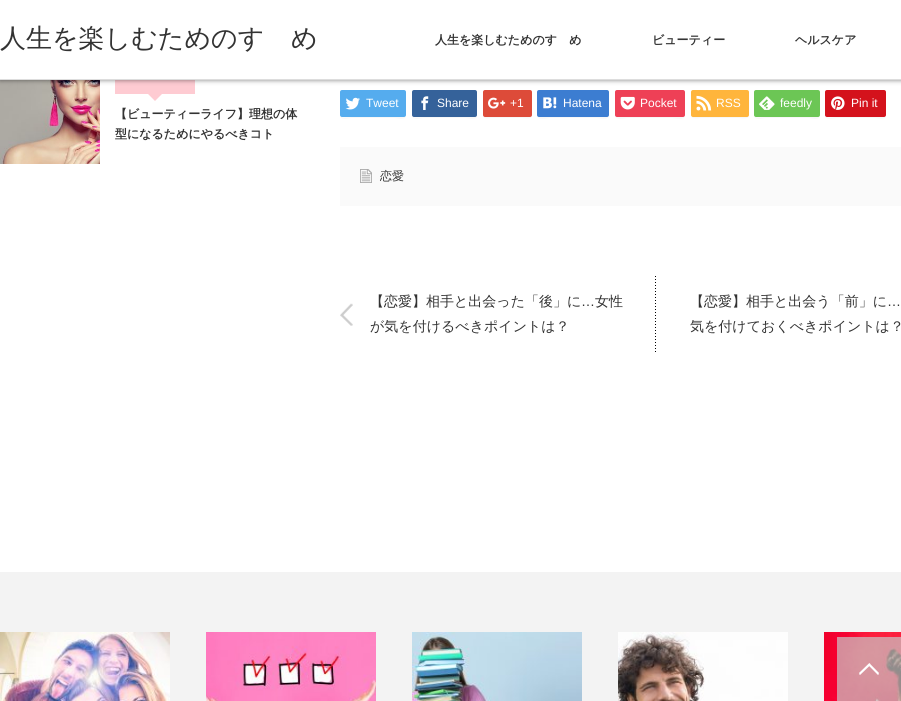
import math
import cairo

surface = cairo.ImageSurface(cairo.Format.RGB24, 901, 701)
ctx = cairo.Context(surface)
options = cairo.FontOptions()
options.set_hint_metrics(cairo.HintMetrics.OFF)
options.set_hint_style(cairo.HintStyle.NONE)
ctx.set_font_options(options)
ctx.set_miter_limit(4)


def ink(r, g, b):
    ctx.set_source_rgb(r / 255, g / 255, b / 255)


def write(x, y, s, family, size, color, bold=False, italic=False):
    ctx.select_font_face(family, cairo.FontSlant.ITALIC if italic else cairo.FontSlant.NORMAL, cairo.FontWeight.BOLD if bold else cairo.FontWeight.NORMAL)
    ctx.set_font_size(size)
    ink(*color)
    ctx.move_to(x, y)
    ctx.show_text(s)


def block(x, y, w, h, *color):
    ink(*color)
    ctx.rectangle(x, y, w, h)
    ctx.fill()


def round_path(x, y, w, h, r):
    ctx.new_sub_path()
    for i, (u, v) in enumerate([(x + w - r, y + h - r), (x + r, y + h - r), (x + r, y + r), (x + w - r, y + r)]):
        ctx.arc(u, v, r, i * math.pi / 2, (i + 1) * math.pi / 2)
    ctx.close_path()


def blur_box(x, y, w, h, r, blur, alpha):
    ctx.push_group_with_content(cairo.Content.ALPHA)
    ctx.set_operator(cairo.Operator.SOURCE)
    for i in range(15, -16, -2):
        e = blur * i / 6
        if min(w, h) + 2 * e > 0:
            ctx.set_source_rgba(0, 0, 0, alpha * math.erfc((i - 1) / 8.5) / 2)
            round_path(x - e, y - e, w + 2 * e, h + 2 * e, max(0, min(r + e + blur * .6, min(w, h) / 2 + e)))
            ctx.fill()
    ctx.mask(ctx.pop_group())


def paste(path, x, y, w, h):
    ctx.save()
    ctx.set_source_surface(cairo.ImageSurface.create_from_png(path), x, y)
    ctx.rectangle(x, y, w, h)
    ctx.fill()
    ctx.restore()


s1 = dict(family="WenQuanYi Zen Hei Medium", size=26, color=(51, 51, 51))
s2 = dict(family="WenQuanYi Zen Hei", size=12, color=(51, 51, 51), bold=True)
s3 = dict(family="Liberation Sans", size=12, color=(255, 255, 255))
s4 = dict(family="WenQuanYi Zen Hei Medium", size=12, color=(51, 51, 51))
s5 = dict(family="WenQuanYi Zen Hei Medium", size=14, color=(51, 51, 51))
s6 = dict(family="Liberation Sans", size=14, color=(51, 51, 51))

ink(255, 255, 255)
ctx.paint()
paste("pic1.png", 0, 80, 100, 84)
block(115, 80, 80, 14, 254, 203, 210)
ink(0, 0, 0)
blur_box(0, 0, 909, 80, 0, 2.5, 0.5)
block(0, 0, 901, 79, 255, 255, 255)
block(0, 79, 901, 1, 221, 221, 221)
write(0, 47, "人生を楽しむためのすゝめ", **s1)
write(435, 44, "人生を楽しむためのすゝめ", **s2)
write(652, 44, "ビューティー", **s2)
write(795, 44, "ヘルスケア", **s2)
ink(254, 203, 210)
ctx.new_path()
ctx.move_to(145, 91)
ctx.line_to(165, 91)
ctx.line_to(155, 101)
ctx.close_path()
ctx.fill()
write(115, 118, "【ビューティーライフ】理想の体", **s2)
write(115, 138, "型になるためにやるべきコト", **s2)
ink(247, 247, 247)
ctx.new_path()
ctx.move_to(340, 115)
ctx.curve_to(340, 121, 349, 118, 352, 118)
ctx.line_to(394, 118)
ctx.curve_to(397, 118, 406, 121, 406, 115)
ctx.line_to(405, 117)
ctx.line_to(352, 117)
ctx.curve_to(348, 117, 340, 119, 340, 115)
ctx.close_path()
ctx.fill()
ink(85, 172, 238)
round_path(340, 90, 66, 27, 2)
ctx.fill()
paste("pic2.png", 345, 97, 15, 13)
write(366, 107, "Tweet", **s3)
ink(247, 247, 247)
ctx.new_path()
ctx.move_to(412, 115)
ctx.curve_to(412, 121, 420, 118, 424, 118)
ctx.line_to(465, 118)
ctx.curve_to(469, 118, 477, 121, 477, 115)
ctx.line_to(476, 117)
ctx.line_to(424, 117)
ctx.curve_to(420, 117, 412, 119, 412, 115)
ctx.close_path()
ctx.fill()
ink(53, 98, 154)
round_path(412, 90, 65, 27, 2)
ctx.fill()
paste("pic3.png", 421, 96, 8, 14)
write(437, 107, "Share", **s3)
ink(247, 247, 247)
ctx.new_path()
ctx.move_to(483, 115)
ctx.curve_to(483, 120, 489, 118, 492, 118)
ctx.line_to(522, 118)
ctx.curve_to(526, 118, 532, 120, 532, 115)
ctx.curve_to(532, 116, 531, 117, 530, 117)
ctx.line_to(485, 117)
ctx.curve_to(484, 117, 483, 116, 483, 115)
ctx.close_path()
ctx.fill()
ink(221, 75, 57)
round_path(483, 90, 49, 27, 2)
ctx.fill()
paste("pic4.png", 488, 97, 18, 12)
write(510, 107, "+1", **s3)
ink(247, 247, 247)
ctx.new_path()
ctx.move_to(537, 115)
ctx.curve_to(537, 121, 547, 118, 550, 118)
ctx.line_to(596, 118)
ctx.curve_to(599, 118, 609, 121, 609, 115)
ctx.curve_to(609, 116, 608, 117, 607, 117)
ctx.line_to(538, 117)
ctx.close_path()
ctx.fill()
ink(60, 125, 209)
round_path(537, 90, 72, 27, 2)
ctx.fill()
paste("pic5.png", 543, 97, 14, 12)
write(563, 107, "Hatena", **s3)
ink(247, 247, 247)
ctx.new_path()
ctx.move_to(615, 115)
ctx.curve_to(615, 121, 624, 118, 628, 118)
ctx.line_to(672, 118)
ctx.curve_to(676, 118, 685, 121, 685, 115)
ctx.curve_to(685, 116, 684, 117, 683, 117)
ctx.line_to(616, 117)
ctx.close_path()
ctx.fill()
ink(238, 64, 86)
round_path(615, 90, 70, 27, 2)
ctx.fill()
paste("pic6.png", 620, 96, 15, 14)
write(640, 107, "Pocket", **s3)
ink(247, 247, 247)
ctx.new_path()
ctx.move_to(691, 115)
ctx.curve_to(691, 120, 698, 118, 702, 118)
ctx.line_to(738, 118)
ctx.curve_to(742, 118, 749, 120, 749, 115)
ctx.line_to(748, 117)
ctx.line_to(692, 117)
ctx.close_path()
ctx.fill()
ink(255, 181, 60)
round_path(691, 90, 58, 27, 2)
ctx.fill()
paste("pic7.png", 696, 95, 16, 16)
write(716, 107, "RSS", **s3)
ink(247, 247, 247)
ctx.new_path()
ctx.move_to(754, 115)
ctx.curve_to(754, 121, 763, 118, 766, 118)
ctx.line_to(808, 118)
ctx.curve_to(811, 118, 820, 121, 820, 115)
ctx.line_to(819, 117)
ctx.line_to(766, 117)
ctx.curve_to(762, 117, 754, 119, 754, 115)
ctx.close_path()
ctx.fill()
ink(108, 198, 85)
round_path(754, 90, 66, 27, 2)
ctx.fill()
paste("pic8.png", 759, 96, 16, 14)
write(780, 107, "feedly", **s3)
ink(247, 247, 247)
ctx.new_path()
ctx.move_to(825, 115)
ctx.curve_to(825, 121, 833, 118, 836, 118)
ctx.line_to(874, 118)
ctx.curve_to(878, 118, 886, 121, 886, 115)
ctx.line_to(885, 117)
ctx.line_to(836, 117)
ctx.curve_to(833, 117, 828, 119, 826, 116)
ctx.close_path()
ctx.fill()
ink(212, 18, 28)
round_path(825, 90, 61, 27, 2)
ctx.fill()
paste("pic9.png", 831, 96, 14, 14)
write(851, 107, "Pin it", **s3)
block(340, 147, 561, 59, 250, 250, 250)
paste("pic10.png", 360, 169, 12, 14)
write(380, 180, "恋愛", **s4)
paste("pic11.png", 655, 276, 1, 76)
paste("pic12.png", 340, 303, 13, 23)
write(370, 306, "【恋愛】相手と出会った「後」に", **s5)
write(581, 306, "…", **s6)
write(595, 306, "女性", **s5)
write(370, 331, "が気を付けるべきポイントは？", **s5)
write(690, 306, "【恋愛】相手と出会う「前」に", **s5)
write(887, 306, "…", **s6)
write(690, 331, "気を付けておくべきポイントは？", **s5)
block(0, 572, 901, 129, 243, 243, 243)
paste("pic13.png", 0, 632, 170, 69)
paste("pic14.png", 206, 632, 170, 69)
paste("pic15.png", 412, 632, 170, 69)
paste("pic16.png", 618, 632, 170, 69)
paste("pic17.png", 824, 632, 77, 69)
ctx.set_source_rgba(0.784, 0.784, 0.784, 0.7)
ctx.rectangle(837, 637, 64, 64)
ctx.fill()
paste("pic18.png", 859, 663, 20, 12)
surface.write_to_png("screenshot.png")
